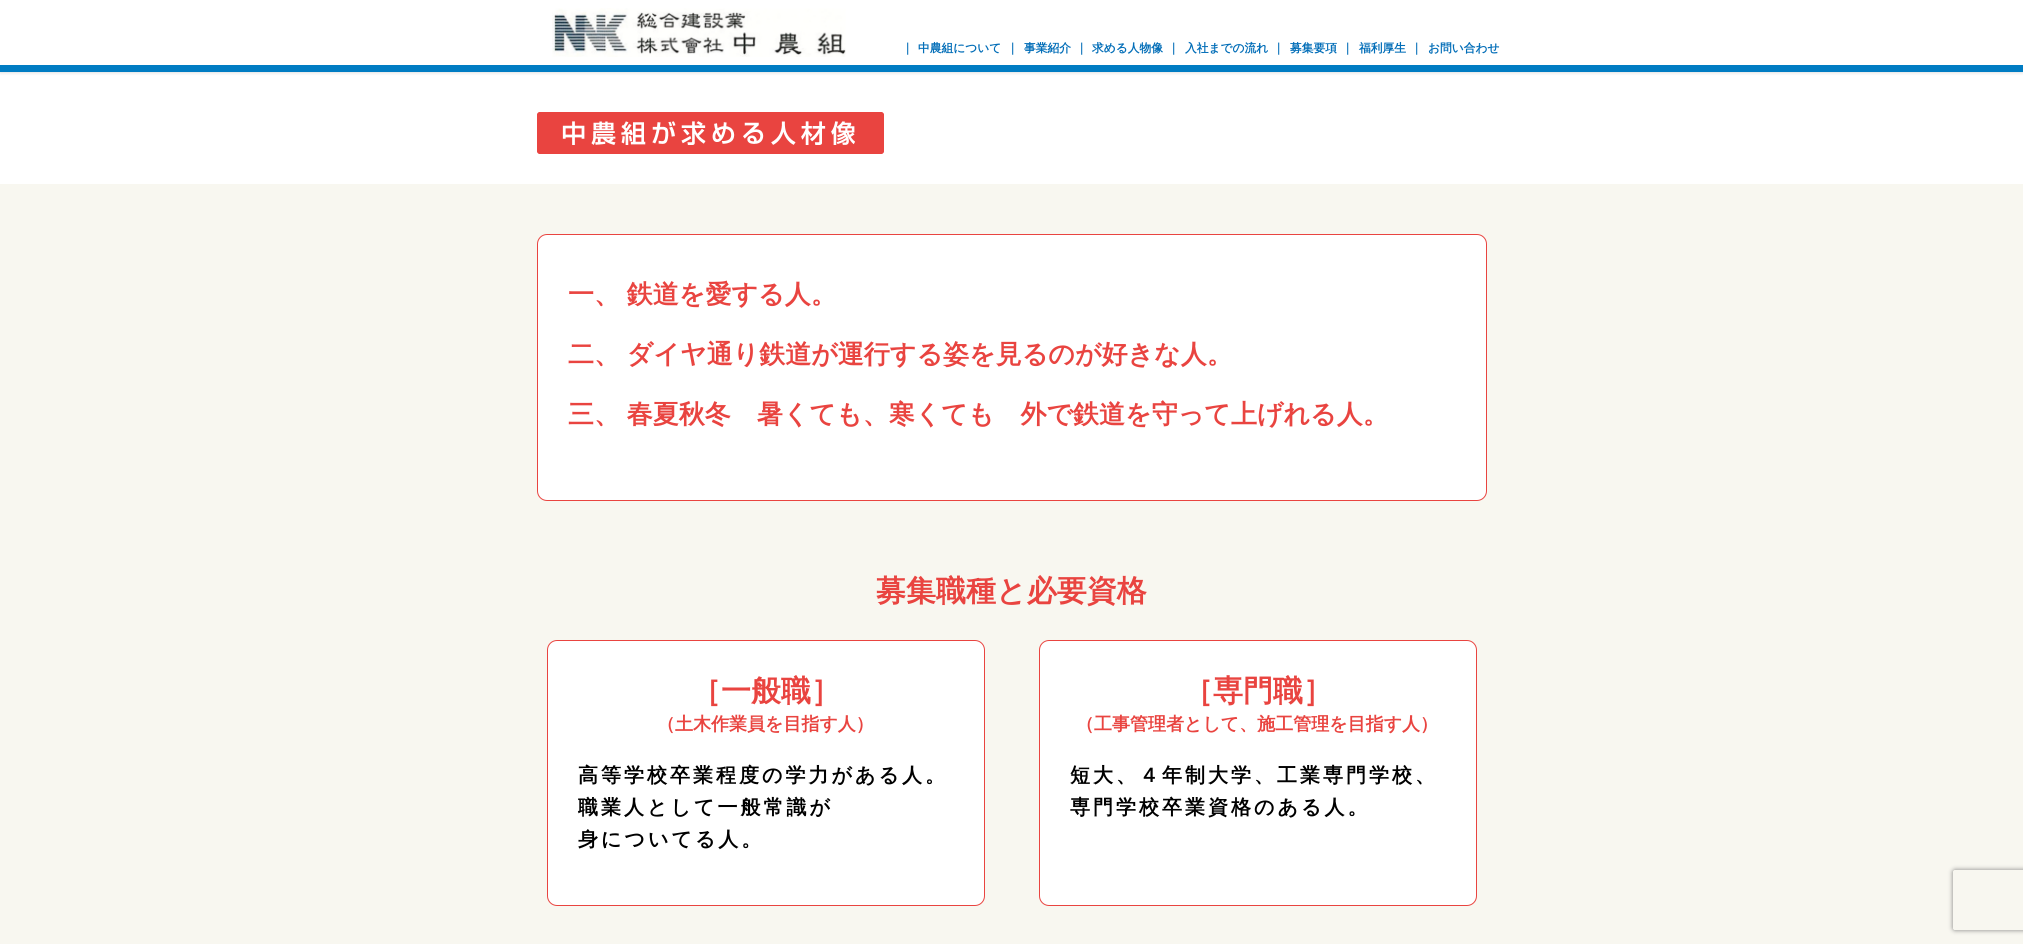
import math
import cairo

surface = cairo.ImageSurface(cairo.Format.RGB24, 2023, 944)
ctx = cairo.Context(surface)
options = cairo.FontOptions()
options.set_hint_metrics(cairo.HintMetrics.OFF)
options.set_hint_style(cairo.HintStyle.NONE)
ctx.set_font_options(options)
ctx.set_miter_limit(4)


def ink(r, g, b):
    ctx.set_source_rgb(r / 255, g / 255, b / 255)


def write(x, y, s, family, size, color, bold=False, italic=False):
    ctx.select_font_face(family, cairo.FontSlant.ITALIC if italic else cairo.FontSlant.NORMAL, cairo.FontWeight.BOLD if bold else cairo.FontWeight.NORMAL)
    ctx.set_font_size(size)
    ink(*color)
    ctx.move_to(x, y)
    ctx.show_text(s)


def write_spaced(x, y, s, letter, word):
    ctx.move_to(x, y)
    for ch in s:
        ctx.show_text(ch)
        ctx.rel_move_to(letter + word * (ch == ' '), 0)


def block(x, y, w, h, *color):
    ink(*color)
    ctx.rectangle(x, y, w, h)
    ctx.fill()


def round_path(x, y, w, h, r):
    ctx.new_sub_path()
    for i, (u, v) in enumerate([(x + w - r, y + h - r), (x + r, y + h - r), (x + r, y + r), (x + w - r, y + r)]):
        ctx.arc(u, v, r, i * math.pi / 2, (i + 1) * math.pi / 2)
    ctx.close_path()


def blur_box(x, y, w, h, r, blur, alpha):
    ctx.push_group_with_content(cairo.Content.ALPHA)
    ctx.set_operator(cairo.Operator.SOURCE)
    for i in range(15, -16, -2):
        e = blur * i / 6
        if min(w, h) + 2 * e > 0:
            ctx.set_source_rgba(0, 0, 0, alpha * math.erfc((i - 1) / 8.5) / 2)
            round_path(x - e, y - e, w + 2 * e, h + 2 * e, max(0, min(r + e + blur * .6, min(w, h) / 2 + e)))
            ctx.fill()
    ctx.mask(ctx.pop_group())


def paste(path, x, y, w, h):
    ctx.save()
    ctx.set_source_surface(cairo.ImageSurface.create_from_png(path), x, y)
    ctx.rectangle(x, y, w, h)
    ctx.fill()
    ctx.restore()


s1 = dict(family="Liberation Sans", size=13, color=(3, 110, 184))
s2 = dict(family="WenQuanYi Zen Hei", size=11.75, color=(3, 110, 184), bold=True)
s3 = dict(family="WenQuanYi Zen Hei", size=30, color=(233, 68, 64), bold=True)
s4 = dict(family="WenQuanYi Zen Hei", size=18, color=(233, 68, 64), bold=True)

ink(255, 255, 255)
ctx.paint()
ink(0, 0, 0)
blur_box(0, 0, 2023, 72, 0, 2, 0.2)
block(0, 0, 2023, 65, 255, 255, 255)
block(0, 65, 2023, 7, 0, 124, 195)
paste("pic1.png", 552, 8, 294, 49)
write(906, 52, "|", **s1)
write(918, 52, "中農組について", **s2)
write(1011, 52, "|", **s1)
write(1024, 52, "事業紹介", **s2)
write(1080, 52, "|", **s1)
write(1092, 52, "求める人物像", **s2)
write(1172, 52, "|", **s1)
write(1185, 52, "入社までの流れ", **s2)
write(1277, 52, "|", **s1)
write(1290, 52, "募集要項", **s2)
write(1346, 52, "|", **s1)
write(1359, 52, "福利厚生", **s2)
write(1415, 52, "|", **s1)
write(1428, 52, "お問い合わせ", **s2)
paste("pic2.png", 537, 112, 347, 42)
block(0, 184, 2023, 760, 248, 247, 240)
ink(255, 255, 255)
round_path(537.5, 234.5, 949, 266, 9.5)
ctx.fill_preserve()
ink(233, 68, 64)
ctx.set_line_width(1)
ctx.stroke()
ctx.set_font_size(26)
write_spaced(568, 303, "一、 鉄道を愛する人。", 0, -1)
write_spaced(568, 363, "二、 ダイヤ通り鉄道が運行する姿を見るのが好きな人。", 0, -1)
write_spaced(568, 423, "三、 春夏秋冬　暑くても、寒くても　外で鉄道を守って上げれる人。", 0, -1)
write(876, 601, "募集職種と必要資格", **s3)
ink(255, 255, 255)
round_path(547.5, 640.5, 437, 265, 9.5)
ctx.fill_preserve()
ink(233, 68, 64)
ctx.stroke()
write(691, 701, "［一般職］", **s3)
write(657, 730, "（土木作業員を目指す人）", **s4)
ctx.set_font_size(20)
ink(0, 0, 0)
write_spaced(578, 782, "高等学校卒業程度の学力がある人。", 3, 0)
write_spaced(578, 814, "職業人として一般常識が", 3, 0)
write_spaced(578, 846, "身についてる人。", 3, 0)
ink(255, 255, 255)
round_path(1039.5, 640.5, 437, 265, 9.5)
ctx.fill_preserve()
ink(233, 68, 64)
ctx.stroke()
write(1183, 701, "［専門職］", **s3)
write(1076, 730, "（工事管理者として、施工管理を目指す人）", **s4)
ctx.set_font_size(20)
ink(0, 0, 0)
write_spaced(1070, 782, "短大、４年制大学、工業専門学校、", 3, 0)
write_spaced(1070, 814, "専門学校卒業資格のある人。", 3, 0)
ctx.save()
ctx.set_fill_rule(cairo.FillRule.EVEN_ODD)
ctx.new_path()
ctx.move_to(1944, 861)
ctx.line_to(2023, 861)
ctx.line_to(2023, 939)
ctx.line_to(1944, 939)
ctx.close_path()
ctx.move_to(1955, 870)
ctx.line_to(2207, 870)
ctx.curve_to(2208, 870, 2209, 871, 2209, 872)
ctx.line_to(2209, 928)
ctx.curve_to(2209, 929, 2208, 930, 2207, 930)
ctx.line_to(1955, 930)
ctx.curve_to(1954, 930, 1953, 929, 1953, 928)
ctx.line_to(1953, 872)
ctx.curve_to(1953, 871, 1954, 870, 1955, 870)
ctx.close_path()
ctx.clip()
ink(128, 128, 128)
blur_box(1953, 870, 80, 60, 2, 2.5, 1)
ctx.restore()
surface.write_to_png("screenshot.png")
